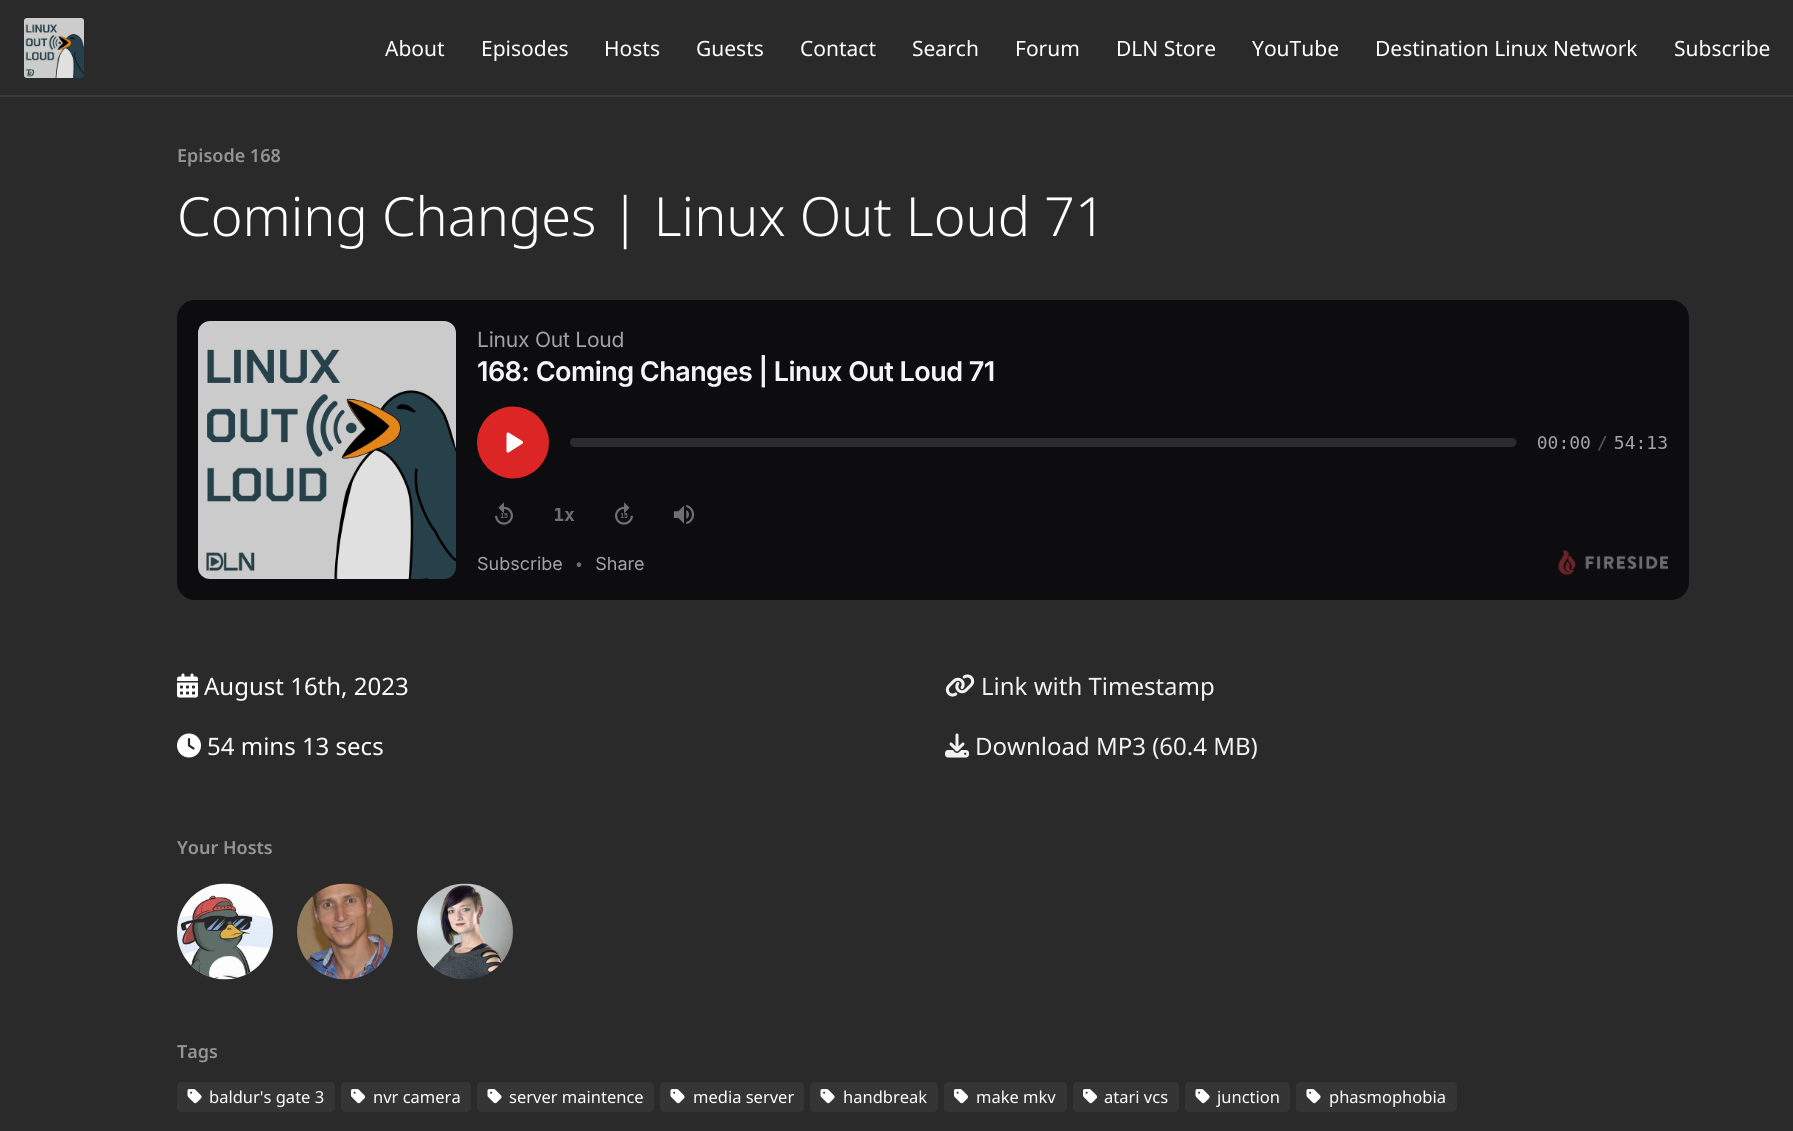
import math
import cairo

surface = cairo.ImageSurface(cairo.Format.RGB24, 1793, 1131)
ctx = cairo.Context(surface)
options = cairo.FontOptions()
options.set_hint_metrics(cairo.HintMetrics.OFF)
options.set_hint_style(cairo.HintStyle.NONE)
ctx.set_font_options(options)
ctx.set_miter_limit(4)


def ink(r, g, b):
    ctx.set_source_rgb(r / 255, g / 255, b / 255)


def write(x, y, s, family, size, color, bold=False, italic=False):
    ctx.select_font_face(family, cairo.FontSlant.ITALIC if italic else cairo.FontSlant.NORMAL, cairo.FontWeight.BOLD if bold else cairo.FontWeight.NORMAL)
    ctx.set_font_size(size)
    ink(*color)
    ctx.move_to(x, y)
    ctx.show_text(s)


def block(x, y, w, h, *color):
    ink(*color)
    ctx.rectangle(x, y, w, h)
    ctx.fill()


def round_path(x, y, w, h, r):
    ctx.new_sub_path()
    for i, (u, v) in enumerate([(x + w - r, y + h - r), (x + r, y + h - r), (x + r, y + r), (x + w - r, y + r)]):
        ctx.arc(u, v, r, i * math.pi / 2, (i + 1) * math.pi / 2)
    ctx.close_path()


def paste(path, x, y, w, h):
    ctx.save()
    ctx.set_source_surface(cairo.ImageSurface.create_from_png(path), x, y)
    ctx.rectangle(x, y, w, h)
    ctx.fill()
    ctx.restore()


s1 = dict(family="Noto Sans", size=21, color=(255, 255, 255))
s2 = dict(family="Noto Sans SemiBold", size=18, color=(149, 149, 149))
s3 = dict(family="Noto Sans Light", size=54, color=(255, 255, 255))
s4 = dict(family="Noto Sans", size=24, color=(255, 255, 255))
s5 = dict(family="Noto Sans", size=24, color=(242, 242, 242))
s6 = dict(family="Noto Sans", size=16.5, color=(255, 255, 255))

ink(42, 42, 42)
ctx.paint()
block(0, 95, 1793, 2, 59, 59, 59)
paste("pic1.png", 24, 18, 60, 60)
write(385, 56, "About", **s1)
write(481, 56, "Episodes", **s1)
write(604, 56, "Hosts", **s1)
write(696, 56, "Guests", **s1)
write(800, 56, "Contact", **s1)
write(912, 56, "Search", **s1)
write(1015, 56, "Forum", **s1)
write(1116, 56, "DLN Store", **s1)
write(1252, 56, "YouTube", **s1)
write(1375, 56, "Destination Linux Network", **s1)
write(1674, 56, "Subscribe", **s1)
write(177, 162, "Episode 168", **s2)
write(177, 236, "Coming Changes | Linux Out Loud 71", **s3)
paste("pic2.png", 177, 300, 1512, 300)
paste("pic3.png", 177, 673, 21, 25)
write(204, 695, "August 16th, 2023", **s4)
paste("pic4.png", 177, 733, 24, 25)
write(207, 755, "54 mins 13 secs", **s4)
paste("pic5.png", 945, 674, 30, 23)
write(981, 695, "Link with Timestamp", **s5)
paste("pic6.png", 945, 733, 24, 25)
write(975, 755, "Download MP3 (60.4 MB)", **s5)
write(177, 854, "Your Hosts", **s2)
paste("pic7.png", 177, 883, 96, 97)
paste("pic8.png", 297, 883, 96, 97)
paste("pic9.png", 417, 883, 96, 97)
write(177, 1058, "Tags", **s2)
ink(53, 53, 53)
round_path(177, 1082, 158, 30, 5)
ctx.fill()
paste("pic10.png", 187, 1089, 15, 15)
write(209, 1103, "baldur's gate 3", **s6)
ink(53, 53, 53)
round_path(341, 1082, 130, 30, 5)
ctx.fill()
paste("pic11.png", 351, 1089, 15, 15)
write(373, 1103, "nvr camera", **s6)
ink(53, 53, 53)
round_path(477, 1082, 177, 30, 5)
ctx.fill()
paste("pic10.png", 487, 1089, 15, 15)
write(509, 1103, "server maintence", **s6)
ink(53, 53, 53)
round_path(660, 1082, 144, 30, 5)
ctx.fill()
paste("pic10.png", 670, 1089, 15, 15)
write(693, 1103, "media server", **s6)
ink(53, 53, 53)
round_path(810, 1082, 128, 30, 5)
ctx.fill()
paste("pic10.png", 820, 1089, 15, 15)
write(843, 1103, "handbreak", **s6)
ink(53, 53, 53)
round_path(944, 1082, 123, 30, 5)
ctx.fill()
paste("pic11.png", 954, 1089, 15, 15)
write(976, 1103, "make mkv", **s6)
ink(53, 53, 53)
round_path(1073, 1082, 106, 30, 5)
ctx.fill()
paste("pic11.png", 1083, 1089, 15, 15)
write(1104, 1103, "atari vcs", **s6)
ink(53, 53, 53)
round_path(1185, 1082, 105, 30, 5)
ctx.fill()
paste("pic10.png", 1195, 1089, 15, 15)
write(1217, 1103, "junction", **s6)
ink(53, 53, 53)
round_path(1296, 1082, 161, 30, 5)
ctx.fill()
paste("pic10.png", 1306, 1089, 15, 15)
write(1329, 1103, "phasmophobia", **s6)
surface.write_to_png("screenshot.png")
